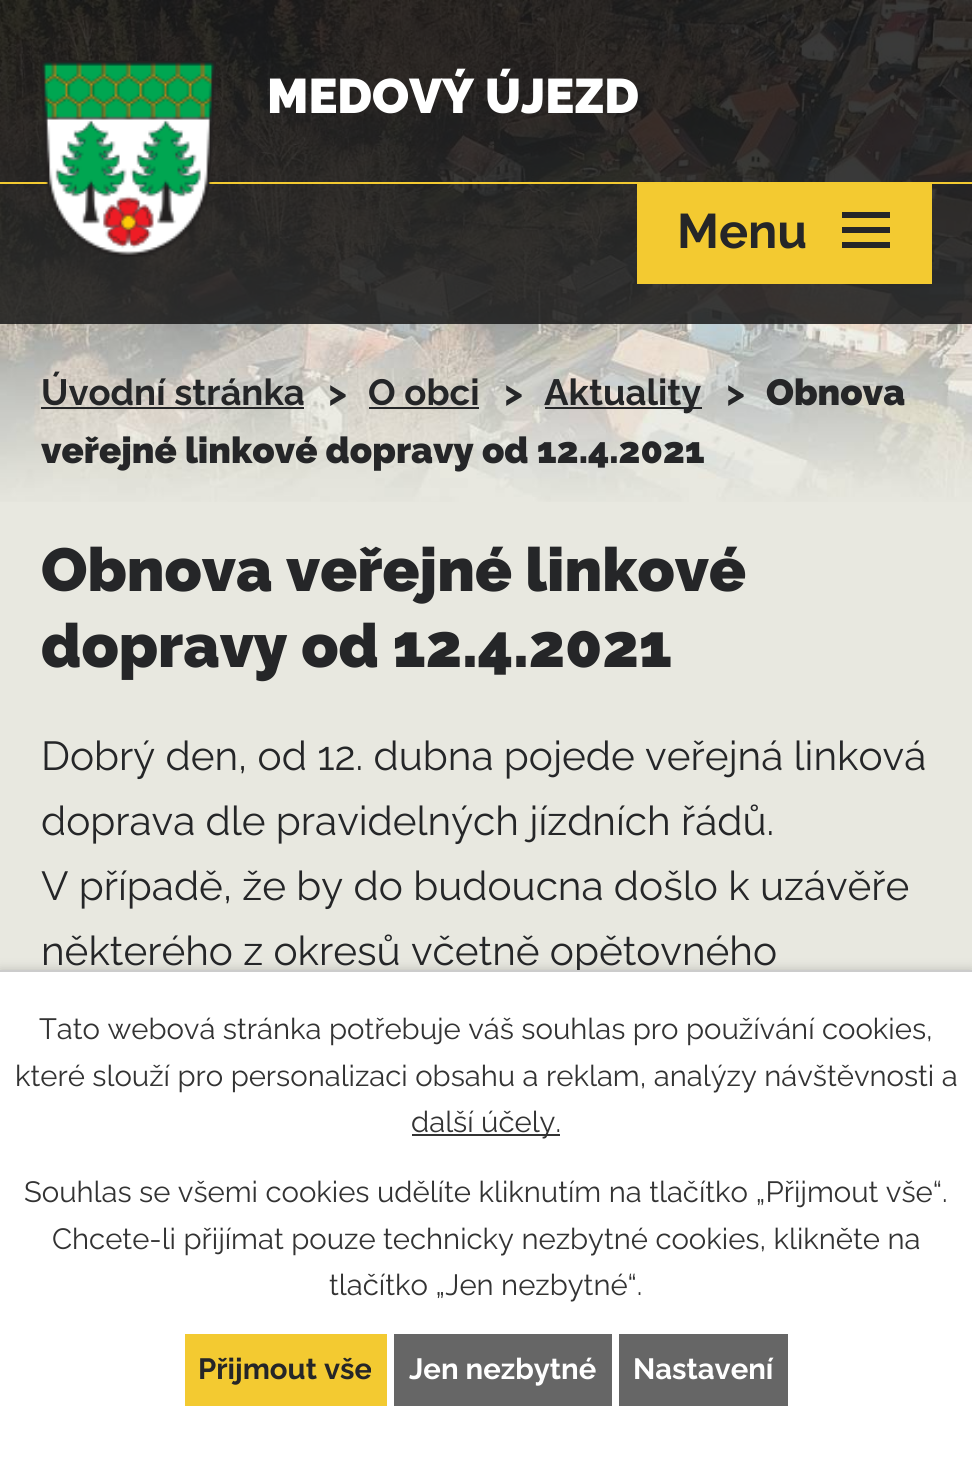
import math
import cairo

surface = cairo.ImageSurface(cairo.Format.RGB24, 972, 1460)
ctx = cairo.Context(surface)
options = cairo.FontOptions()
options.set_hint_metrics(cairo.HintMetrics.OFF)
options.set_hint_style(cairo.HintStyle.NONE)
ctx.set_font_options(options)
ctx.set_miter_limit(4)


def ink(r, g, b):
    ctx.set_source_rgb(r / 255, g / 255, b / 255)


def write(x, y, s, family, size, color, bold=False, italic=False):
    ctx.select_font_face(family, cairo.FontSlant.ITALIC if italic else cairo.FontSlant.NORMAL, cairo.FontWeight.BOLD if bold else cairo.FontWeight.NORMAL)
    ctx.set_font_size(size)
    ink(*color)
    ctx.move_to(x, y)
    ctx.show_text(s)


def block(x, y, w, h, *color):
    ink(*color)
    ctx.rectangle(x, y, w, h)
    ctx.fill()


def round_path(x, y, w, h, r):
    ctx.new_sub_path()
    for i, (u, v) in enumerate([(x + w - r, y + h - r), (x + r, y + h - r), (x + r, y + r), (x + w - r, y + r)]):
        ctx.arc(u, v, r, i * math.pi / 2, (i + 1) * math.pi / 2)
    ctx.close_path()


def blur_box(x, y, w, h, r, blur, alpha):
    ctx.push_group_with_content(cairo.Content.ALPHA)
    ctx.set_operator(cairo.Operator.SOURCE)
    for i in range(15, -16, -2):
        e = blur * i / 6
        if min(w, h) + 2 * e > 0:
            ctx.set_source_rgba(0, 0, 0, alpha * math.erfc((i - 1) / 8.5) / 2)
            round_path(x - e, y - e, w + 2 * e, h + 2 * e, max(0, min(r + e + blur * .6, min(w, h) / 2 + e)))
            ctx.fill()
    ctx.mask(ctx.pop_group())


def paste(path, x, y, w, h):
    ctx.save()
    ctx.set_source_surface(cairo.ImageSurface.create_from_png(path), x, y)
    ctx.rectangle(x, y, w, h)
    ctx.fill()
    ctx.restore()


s1 = dict(family="Raleway Black", size=48.5, color=(255, 255, 255))
s2 = dict(family="Raleway", size=48.5, color=(37, 38, 40), bold=True)
s3 = dict(family="Raleway", size=36.5, color=(37, 38, 40), bold=True)
s4 = dict(family="Raleway Black", size=36.5, color=(37, 38, 40))
s5 = dict(family="Raleway Black", size=60.75, color=(37, 38, 40))
s6 = dict(family="Raleway", size=40.5, color=(37, 38, 40))
s7 = dict(family="Raleway", size=29.25, color=(51, 51, 51))
s8 = dict(family="Raleway", size=29.25, color=(37, 38, 40), bold=True)
s9 = dict(family="Raleway", size=29.25, color=(255, 255, 255), bold=True)

ink(232, 232, 224)
ctx.paint()
paste("pic1.png", 0, 0, 972, 502)
ctx.set_source_rgba(0.094, 0.094, 0.094, 0.85)
ctx.rectangle(0, 0, 972, 324)
ctx.fill()
block(0, 182, 972, 2, 243, 202, 49)
paste("pic2.png", 40, 60, 176, 197)
write(267, 113, "MEDOVÝ ÚJEZD", **s1)
block(637, 184, 295, 100, 243, 202, 49)
write(677, 248, "Menu", **s2)
ctx.new_path()
ctx.move_to(842, 248)
ctx.line_to(842, 242)
ctx.line_to(890, 242)
ctx.line_to(890, 248)
ctx.close_path()
ctx.move_to(842, 212)
ctx.line_to(890, 212)
ctx.line_to(890, 218)
ctx.line_to(842, 218)
ctx.close_path()
ctx.move_to(842, 233)
ctx.line_to(842, 227)
ctx.line_to(890, 227)
ctx.line_to(890, 233)
ctx.close_path()
ctx.fill()
write(41, 405, "Úvodní stránka", **s3)
block(41, 407, 263, 2, 37, 38, 40)
write(328, 405, ">", **s3)
write(368, 405, "O obci", **s3)
block(369, 407, 110, 2, 37, 38, 40)
write(504, 405, ">", **s3)
block(545, 407, 157, 2, 37, 38, 40)
write(544, 405, "Aktuality", **s3)
write(726, 405, ">", **s3)
write(766, 405, "Obnova", **s4)
write(41, 463, "veřejné linkové dopravy od 12.4.2021", **s4)
write(41, 591, "Obnova veřejné linkové", **s5)
write(41, 667, "dopravy od 12.4.2021", **s5)
write(41, 770, "Dobrý den, od 12. dubna pojede veřejná linková", **s6)
write(41, 835, "doprava dle pravidelných jízdních řádů.", **s6)
write(41, 900, "V případě, že by do budoucna došlo k uzávěře", **s6)
write(41, 965, "některého z okresů včetně opětovného", **s6)
ink(0, 0, 0)
blur_box(0, 970, 972, 490, 0, 5.5, 0.2)
block(0, 972, 972, 488, 255, 255, 255)
block(0, 970, 972, 2, 204, 204, 204)
write(39, 1039, "Tato webová stránka potřebuje váš souhlas pro používání cookies,", **s7)
write(15, 1086, "které slouží pro personalizaci obsahu a reklam, analýzy návštěvnosti a", **s7)
block(412, 1134, 148, 2, 51, 51, 51)
write(411, 1132, "další účely.", **s7)
write(24, 1202, "Souhlas se všemi cookies udělíte kliknutím na tlačítko „Přijmout vše“.", **s7)
write(52, 1249, "Chcete-li přijímat pouze technicky nezbytné cookies, klikněte na", **s7)
write(329, 1295, "tlačítko „Jen nezbytné“.", **s7)
block(185, 1334, 202, 72, 243, 202, 49)
write(198, 1379, "Přijmout vše", **s8)
block(394, 1334, 218, 72, 102, 102, 102)
write(409, 1379, "Jen nezbytné", **s9)
block(619, 1334, 169, 72, 102, 102, 102)
write(633, 1379, "Nastavení", **s9)
surface.write_to_png("screenshot.png")
